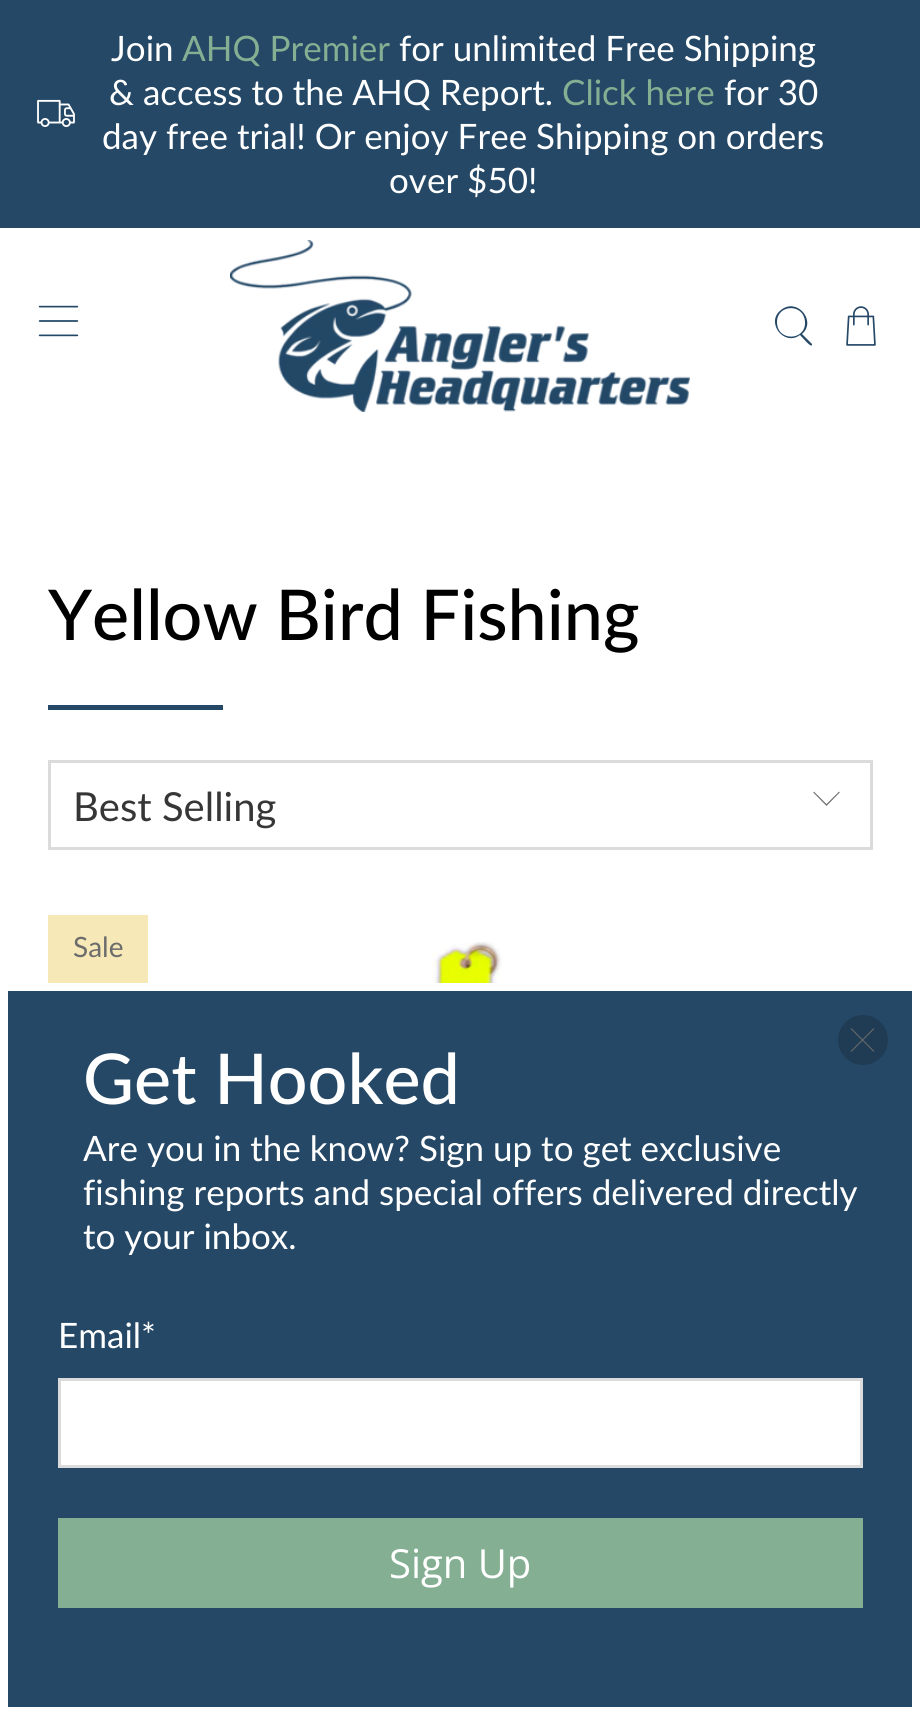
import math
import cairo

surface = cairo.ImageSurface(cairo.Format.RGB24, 920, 1714)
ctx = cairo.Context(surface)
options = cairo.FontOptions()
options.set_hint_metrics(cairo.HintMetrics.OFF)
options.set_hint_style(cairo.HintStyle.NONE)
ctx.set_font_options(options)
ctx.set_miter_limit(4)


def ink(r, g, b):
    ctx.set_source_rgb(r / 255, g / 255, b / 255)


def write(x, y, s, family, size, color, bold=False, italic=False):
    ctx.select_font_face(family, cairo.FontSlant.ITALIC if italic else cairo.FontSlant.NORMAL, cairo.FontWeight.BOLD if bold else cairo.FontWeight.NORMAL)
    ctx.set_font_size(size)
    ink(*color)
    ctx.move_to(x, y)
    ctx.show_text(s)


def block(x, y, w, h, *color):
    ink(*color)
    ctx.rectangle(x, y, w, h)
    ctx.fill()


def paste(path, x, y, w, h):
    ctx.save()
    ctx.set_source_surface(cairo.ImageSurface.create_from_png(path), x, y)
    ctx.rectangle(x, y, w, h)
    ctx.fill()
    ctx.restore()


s1 = dict(family="Lato", size=35, color=(255, 255, 255))
s2 = dict(family="Lato", size=35, color=(133, 175, 146))
s3 = dict(family="Lato Medium", size=70, color=(0, 0, 0))
s4 = dict(family="Lato", size=40, color=(54, 54, 54))
s5 = dict(family="Lato", size=28, color=(108, 108, 108))
s6 = dict(family="Lato Medium", size=70, color=(255, 255, 255))
s7 = dict(family="Open Sans", size=40, color=(255, 255, 255))

ink(255, 255, 255)
ctx.paint()
block(0, 0, 920, 228, 36, 72, 102)
paste("pic1.png", 37, 99, 38, 28)
write(111, 61, "Join", **s1)
write(182, 61, "AHQ Premier", **s2)
write(399, 61, "for unlimited Free Shipping", **s1)
write(109, 105, "& access to the AHQ Report.", **s1)
write(562, 105, "Click here", **s2)
write(724, 105, "for 30", **s1)
write(102, 149, "day free trial! Or enjoy Free Shipping on orders", **s1)
write(389, 193, "over $50!", **s1)
paste("pic2.png", 38, 305, 41, 32)
paste("pic3.png", 230, 240, 460, 172)
ink(36, 72, 102)
ctx.new_path()
ctx.move_to(812, 344)
ctx.line_to(802, 334)
ctx.curve_to(817, 321, 797, 297, 781, 310)
ctx.curve_to(765, 322, 784, 347, 800, 335)
ctx.curve_to(803, 338, 811, 348, 812, 345)
ctx.close_path()
ctx.move_to(777, 322)
ctx.curve_to(777, 304, 804, 303, 805, 322)
ctx.curve_to(806, 341, 777, 342, 777, 322)
ctx.close_path()
ctx.fill()
paste("pic4.png", 846, 306, 30, 40)
write(48, 640, "Yellow Bird Fishing", **s3)
block(48, 705, 175, 5, 36, 72, 102)
ctx.rectangle(49.5, 761.5, 822, 87)
ink(219, 219, 219)
ctx.set_line_width(3)
ctx.stroke()
write(73, 821, "Best Selling", **s4)
paste("pic5.png", 813, 791, 27, 15)
block(48, 915, 100, 68, 247, 232, 184)
write(73, 957, "Sale", **s5)
paste("pic6.png", 407, 941, 110, 42)
block(8, 991, 904, 716, 36, 72, 102)
ink(31, 60, 84)
ctx.arc(863, 1040, 25, 0, 2 * math.pi)
ctx.fill()
paste("pic7.png", 850, 1028, 25, 24)
write(83, 1104, "Get Hooked", **s6)
write(83, 1161, "Are you in the know? Sign up to get exclusive", **s1)
write(83, 1205, "fishing reports and special offers delivered directly", **s1)
write(83, 1249, "to your inbox.", **s1)
write(58, 1348, "Email*", **s1)
ctx.rectangle(59.5, 1379.5, 802, 87)
ctx.fill_preserve()
ink(219, 219, 219)
ctx.stroke()
block(58, 1518, 805, 90, 133, 175, 146)
write(389, 1578, "Sign Up", **s7)
surface.write_to_png("screenshot.png")
